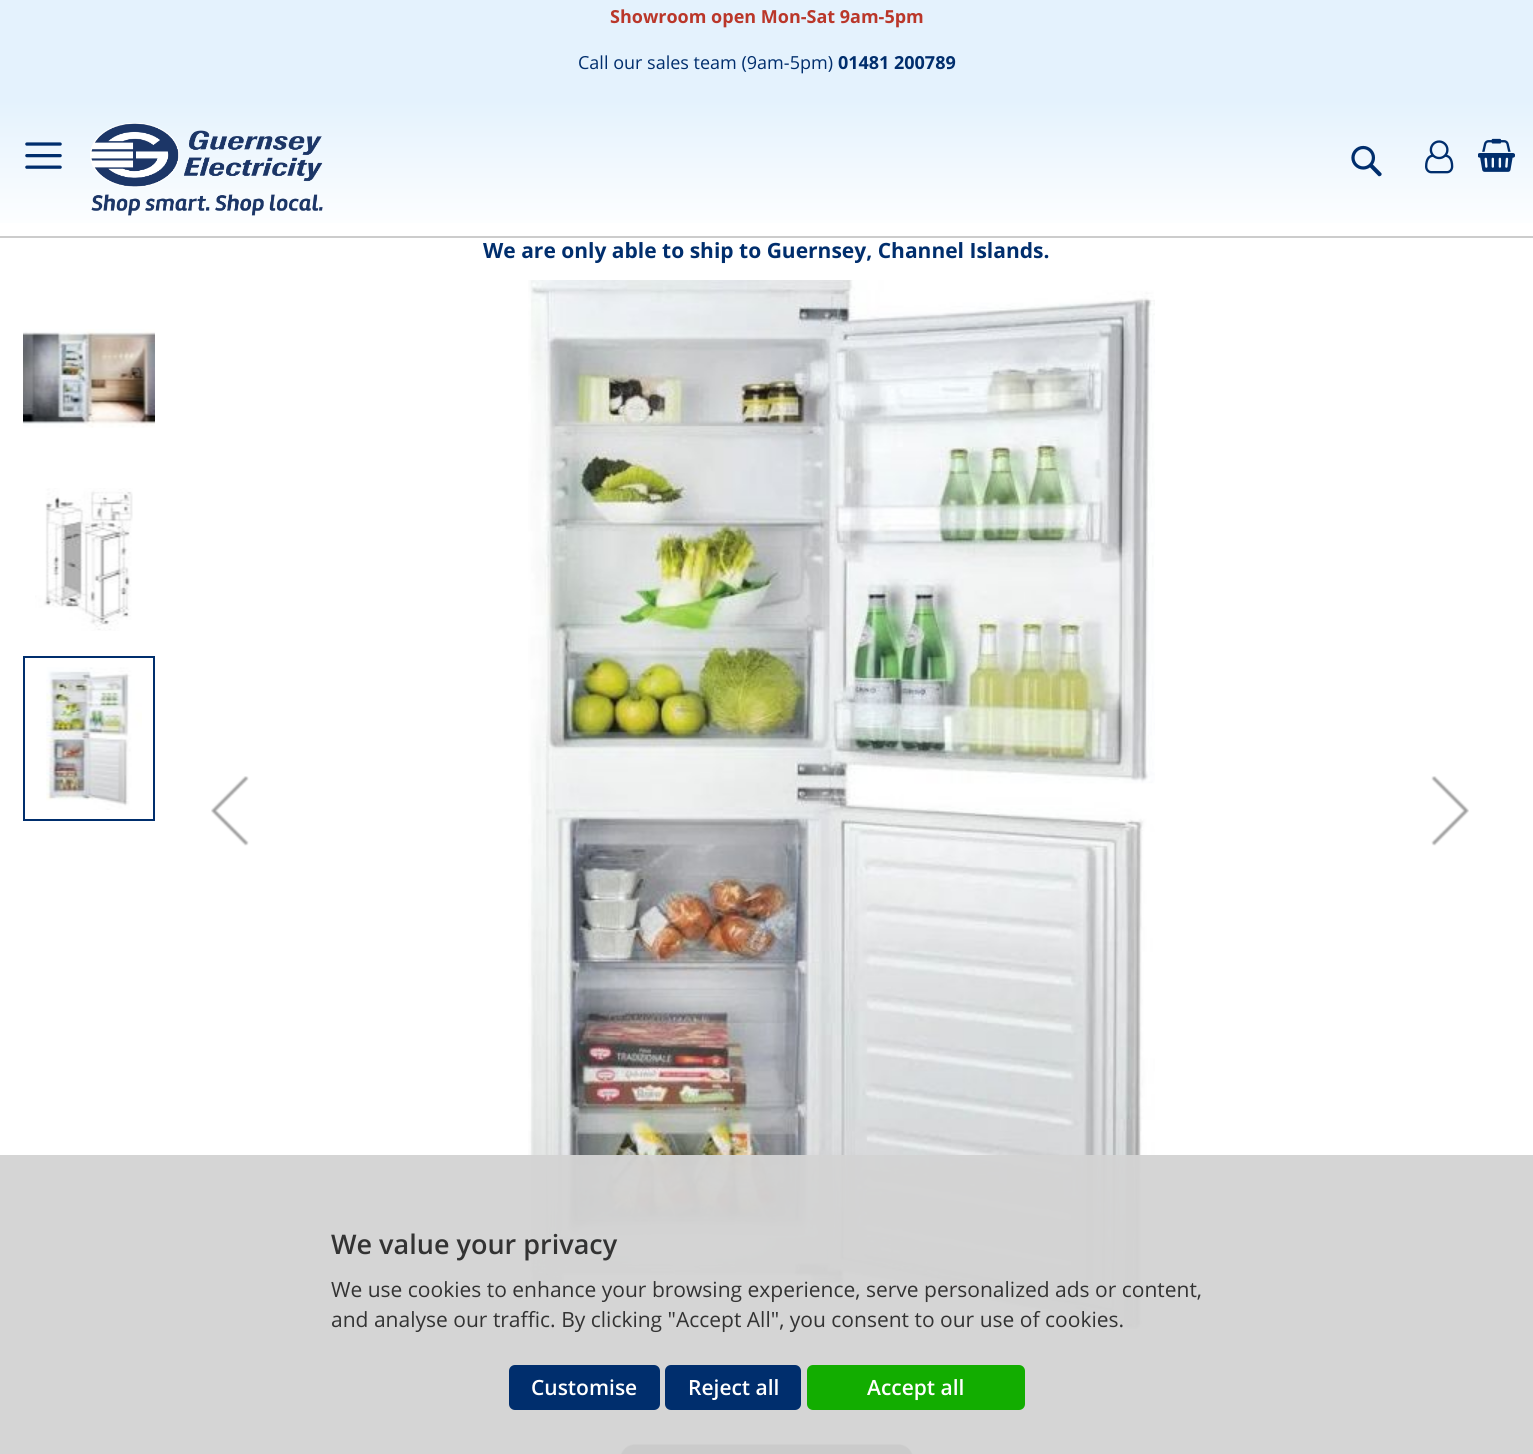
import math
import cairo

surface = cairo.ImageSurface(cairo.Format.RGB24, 1533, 1454)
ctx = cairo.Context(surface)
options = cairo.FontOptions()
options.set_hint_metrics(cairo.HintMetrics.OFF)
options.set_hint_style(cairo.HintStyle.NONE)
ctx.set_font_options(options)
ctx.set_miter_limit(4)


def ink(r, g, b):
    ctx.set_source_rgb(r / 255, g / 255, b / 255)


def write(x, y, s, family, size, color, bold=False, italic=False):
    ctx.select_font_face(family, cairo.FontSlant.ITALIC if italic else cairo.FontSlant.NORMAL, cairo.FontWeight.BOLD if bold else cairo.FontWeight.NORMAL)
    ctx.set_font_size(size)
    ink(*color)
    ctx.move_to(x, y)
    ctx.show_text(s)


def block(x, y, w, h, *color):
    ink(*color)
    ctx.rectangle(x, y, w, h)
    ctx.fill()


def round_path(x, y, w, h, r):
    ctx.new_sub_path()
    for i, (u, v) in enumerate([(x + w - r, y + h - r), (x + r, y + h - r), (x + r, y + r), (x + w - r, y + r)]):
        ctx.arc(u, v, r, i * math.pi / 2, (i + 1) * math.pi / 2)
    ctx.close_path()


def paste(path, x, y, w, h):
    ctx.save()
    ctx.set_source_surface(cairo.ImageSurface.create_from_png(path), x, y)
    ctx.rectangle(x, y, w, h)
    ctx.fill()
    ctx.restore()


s1 = dict(family="Open Sans", size=18, color=(186, 55, 42), bold=True)
s2 = dict(family="Open Sans", size=18, color=(0, 46, 109))
s3 = dict(family="Open Sans", size=18, color=(0, 46, 109), bold=True)
s4 = dict(family="Open Sans", size=21, color=(0, 46, 109), bold=True)
s5 = dict(family="Open Sans SemiBold", size=27, color=(51, 51, 51))
s6 = dict(family="Open Sans", size=21, color=(51, 51, 51))
s7 = dict(family="Open Sans SemiBold", size=21, color=(255, 255, 255))

ink(255, 255, 255)
ctx.paint()
block(0, 0, 1533, 101, 228, 242, 253)
write(610, 23, "Showroom open Mon-Sat 9am-5pm", **s1)
write(578, 69, "Call our sales team (9am-5pm)", **s2)
write(838, 69, "01481 200789", **s3)
gradient = cairo.LinearGradient(767, 100, 767, 236)
gradient.add_color_stop_rgba(0, 0.894, 0.949, 0.992, 1)
gradient.add_color_stop_rgba(1, 1, 1, 1, 1)
ctx.set_source(gradient)
ctx.rectangle(0, 101, 1533, 122)
ctx.fill()
paste("pic1.png", 25, 142, 37, 27)
paste("pic2.png", 90, 123, 233, 93)
paste("pic3.png", 1425, 140, 29, 34)
paste("pic4.png", 1478, 138, 37, 34)
paste("pic5.png", 1351, 145, 31, 32)
block(0, 236, 1533, 2, 204, 204, 204)
write(483, 258, "We are only able to ship to Guernsey, Channel Islands.", **s4)
paste("pic6.png", 23, 329, 132, 99)
paste("pic7.png", 35, 488, 98, 143)
paste("pic8.png", 46, 667, 96, 143)
ctx.rectangle(24, 657, 130, 163)
ctx.stroke()
paste("pic9.png", 211, 776, 38, 70)
paste("pic10.png", 528, 280, 627, 1049)
paste("pic11.png", 1431, 776, 38, 70)
paste("pic12.png", 619, 1442, 295, 12)
ctx.set_source_rgba(0.827, 0.827, 0.827, 0.96)
ctx.rectangle(0, 1155, 1533, 299)
ctx.fill()
write(331, 1254, "We value your privacy", **s5)
write(331, 1297, "We use cookies to enhance your browsing experience, serve personalized ads or content,", **s6)
write(331, 1327, "and analyse our traffic. By clicking \"Accept All\", you consent to our use of cookies.", **s6)
ink(0, 46, 109)
round_path(509, 1365, 151, 45, 6)
ctx.fill()
write(531, 1395, "Customise", **s7)
ink(0, 46, 109)
round_path(665, 1365, 136, 45, 6)
ctx.fill()
write(688, 1395, "Reject all", **s7)
ink(18, 173, 0)
round_path(807, 1365, 218, 45, 6)
ctx.fill()
write(867, 1395, "Accept all", **s7)
surface.write_to_png("screenshot.png")
